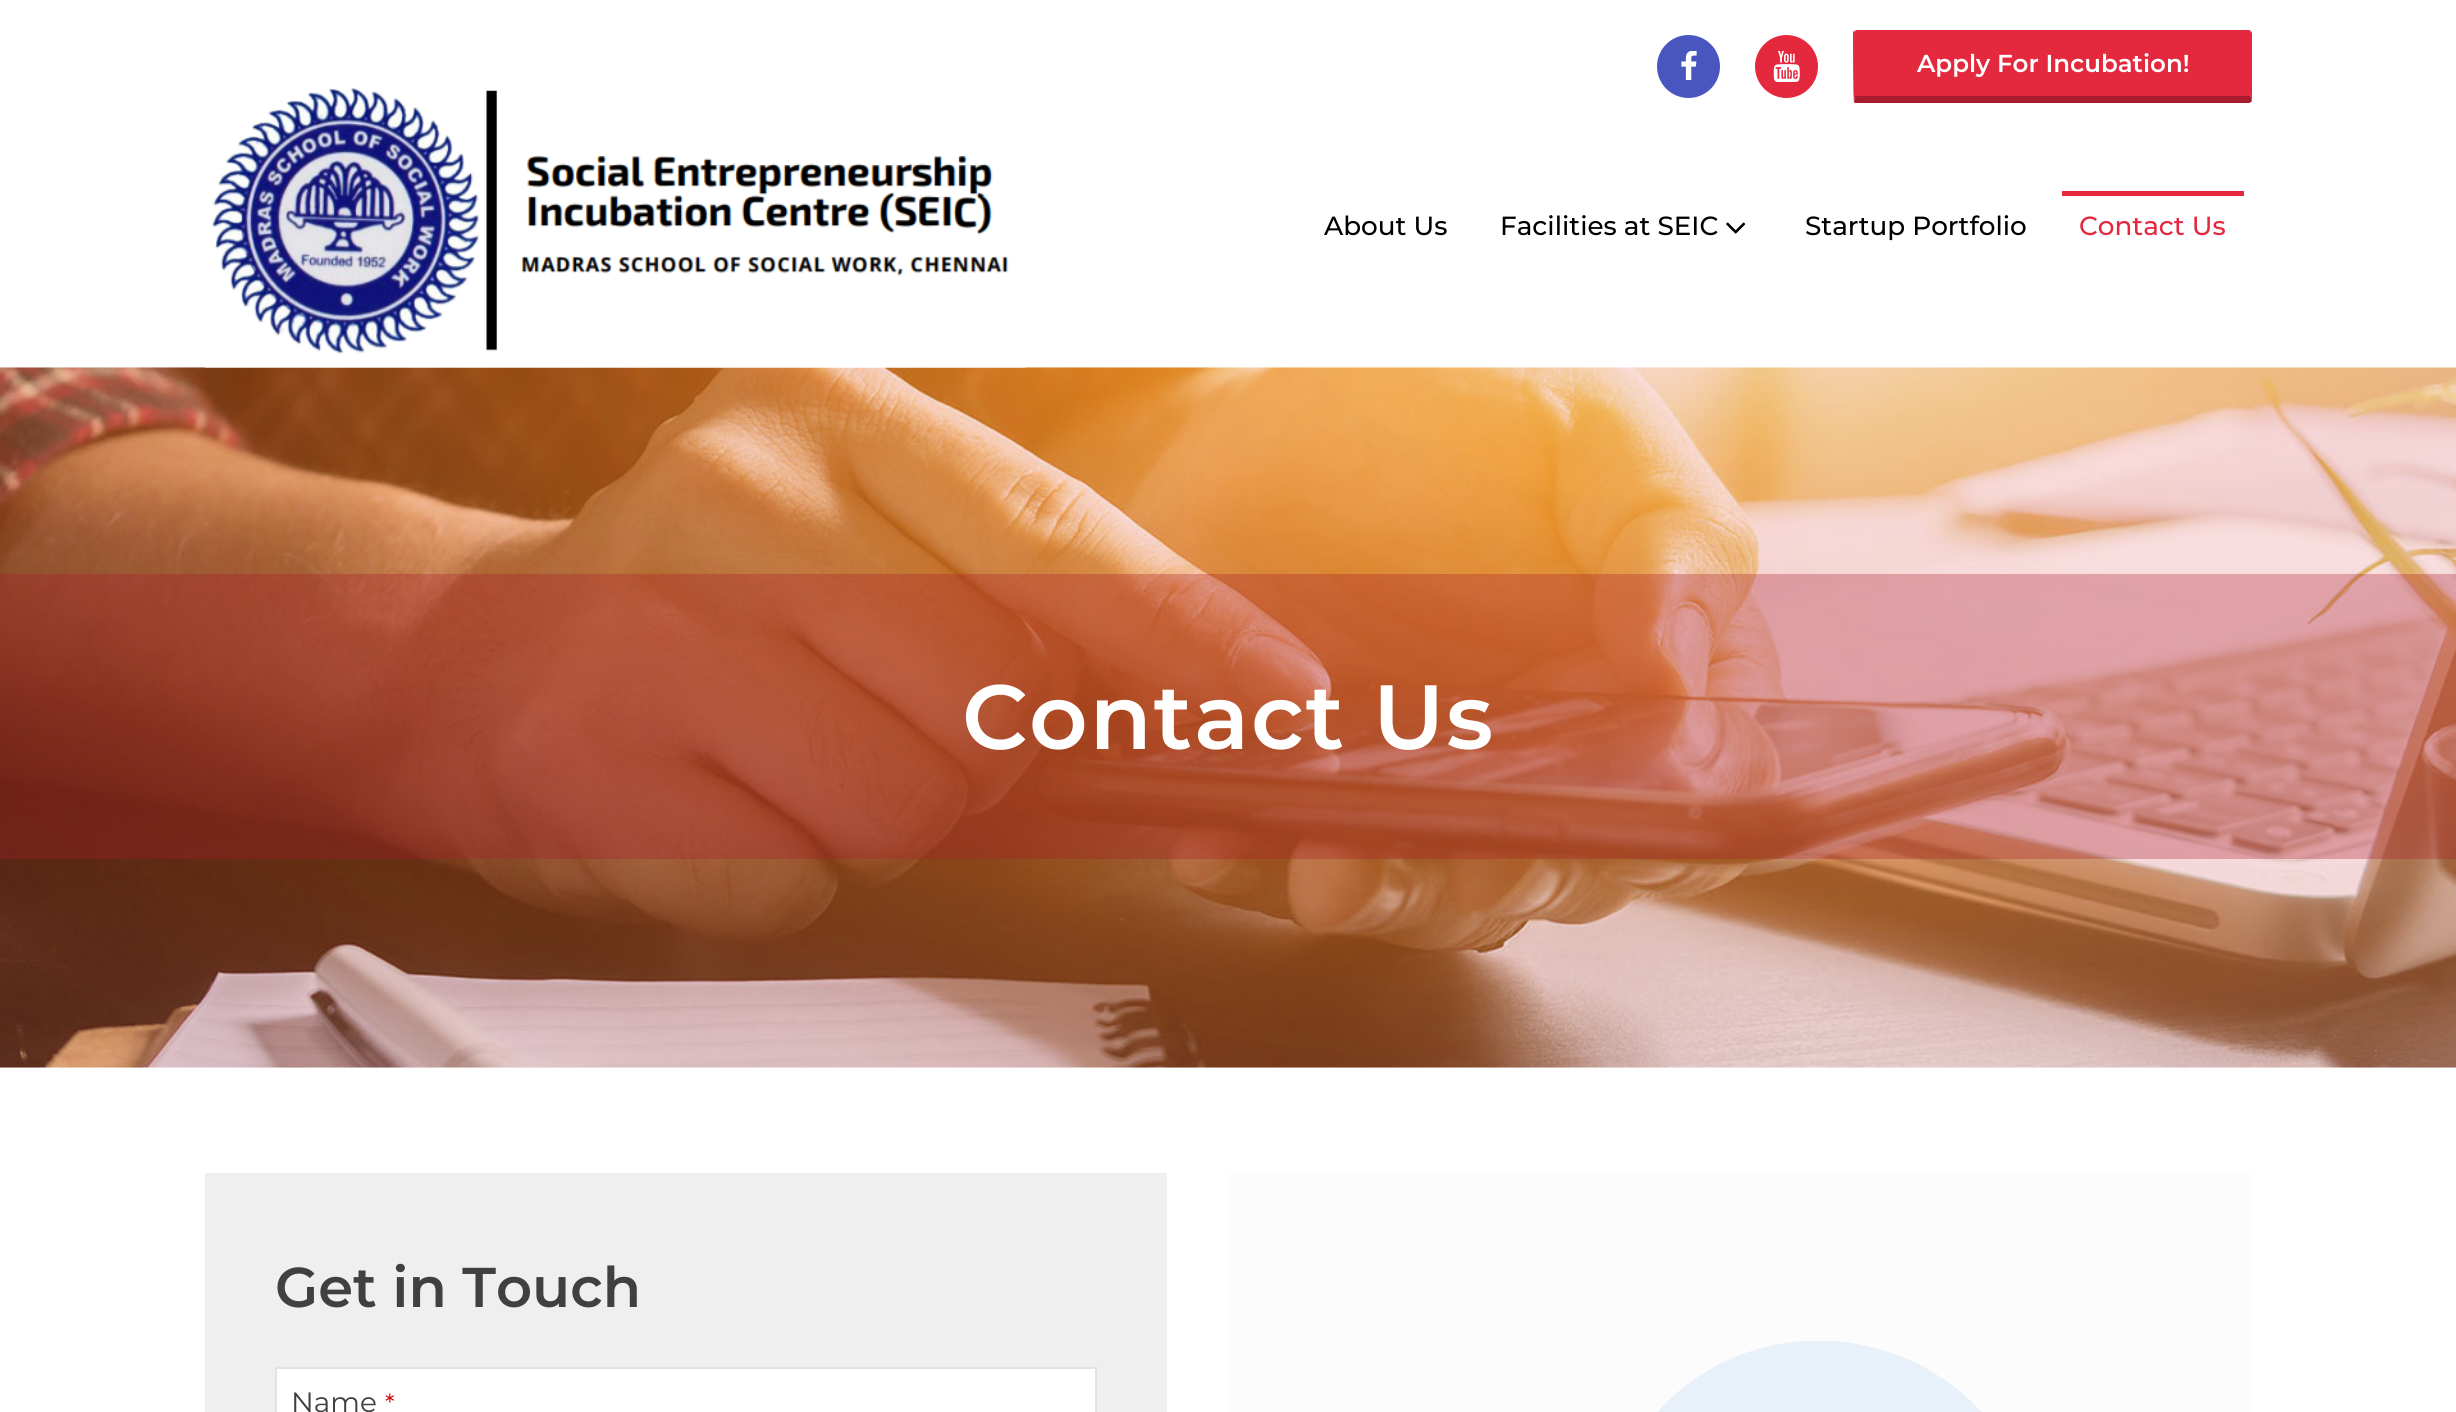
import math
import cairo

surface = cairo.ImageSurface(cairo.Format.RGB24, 2456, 1412)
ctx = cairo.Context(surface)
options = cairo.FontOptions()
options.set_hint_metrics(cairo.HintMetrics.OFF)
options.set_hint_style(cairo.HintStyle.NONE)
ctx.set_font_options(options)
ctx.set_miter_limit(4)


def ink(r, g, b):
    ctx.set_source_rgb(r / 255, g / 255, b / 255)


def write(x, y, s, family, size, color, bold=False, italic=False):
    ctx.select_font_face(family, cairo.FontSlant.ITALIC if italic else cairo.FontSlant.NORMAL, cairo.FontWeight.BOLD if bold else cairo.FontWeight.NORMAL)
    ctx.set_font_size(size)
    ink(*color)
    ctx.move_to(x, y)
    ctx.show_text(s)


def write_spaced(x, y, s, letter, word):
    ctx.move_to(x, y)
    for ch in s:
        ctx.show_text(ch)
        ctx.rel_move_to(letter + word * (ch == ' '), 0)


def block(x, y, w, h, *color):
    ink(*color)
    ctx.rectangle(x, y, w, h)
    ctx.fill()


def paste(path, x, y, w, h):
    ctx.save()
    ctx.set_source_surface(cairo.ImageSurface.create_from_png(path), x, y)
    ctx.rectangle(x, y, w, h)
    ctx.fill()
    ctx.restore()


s1 = dict(family="Montserrat SemiBold", size=24.5, color=(255, 255, 255))
s2 = dict(family="Montserrat Medium", size=26.25, color=(0, 0, 0))
s3 = dict(family="Montserrat Medium", size=26.25, color=(228, 41, 62))
s4 = dict(family="Montserrat SemiBold", size=56, color=(64, 64, 64))
s5 = dict(family="Montserrat", size=28, color=(64, 64, 64))
s6 = dict(family="Montserrat", size=25, color=(204, 1, 1))

ink(255, 255, 255)
ctx.paint()
ink(74, 86, 191)
ctx.arc(1688.5, 66.5, 30.5, 0, 2 * math.pi)
ctx.fill_preserve()
ctx.stroke()
paste("pic1.png", 1681, 51, 16, 29)
ink(228, 41, 62)
ctx.arc(1786.5, 66.5, 30.5, 0, 2 * math.pi)
ctx.fill_preserve()
ctx.stroke()
paste("pic2.png", 1773, 51, 27, 31)
ctx.new_path()
ctx.move_to(1857, 32)
ctx.line_to(2249, 32)
ctx.curve_to(2250, 32, 2250, 32, 2250, 33)
ctx.line_to(2250, 96)
ctx.line_to(1855, 96)
ctx.line_to(1855, 33)
ctx.curve_to(1855, 32, 1856, 32, 1857, 32)
ctx.close_path()
ctx.fill()
ctx.new_path()
ctx.move_to(1857, 30)
ctx.line_to(1854, 31)
ctx.line_to(1856, 32)
ctx.line_to(2250, 32)
ctx.line_to(2251, 31)
ctx.line_to(2249, 30)
ctx.close_path()
ctx.fill()
ctx.new_path()
ctx.move_to(2252, 101)
ctx.line_to(2252, 33)
ctx.line_to(2251, 31)
ctx.line_to(2250, 32)
ctx.line_to(2250, 94)
ctx.close_path()
ctx.fill()
ink(168, 27, 42)
ctx.new_path()
ctx.move_to(2252, 101)
ctx.curve_to(2251, 102, 2250, 103, 2249, 103)
ctx.line_to(1857, 103)
ctx.curve_to(1856, 103, 1854, 103, 1854, 102)
ctx.line_to(1855, 96)
ctx.line_to(2250, 96)
ctx.line_to(2250, 94)
ctx.close_path()
ctx.fill()
ink(228, 41, 62)
ctx.new_path()
ctx.move_to(1853, 32)
ctx.line_to(1854, 31)
ctx.line_to(1856, 32)
ctx.line_to(1855, 33)
ctx.line_to(1855, 96)
ctx.line_to(1854, 102)
ctx.curve_to(1853, 101, 1853, 39, 1853, 32)
ctx.close_path()
ctx.fill()
write(1917, 72, "Apply For Incubation!", **s1)
paste("pic5.png", 0, 367, 2456, 701)
paste("pic3.png", 204, 88, 822, 280)
write(1324, 235, "About Us", **s2)
write(1500, 235, "Facilities at SEIC", **s2)
paste("pic4.png", 1726, 222, 20, 12)
write(1805, 235, "Startup Portfolio", **s2)
block(2062, 191, 182, 5, 228, 41, 62)
write(2079, 235, "Contact Us", **s3)
ctx.set_source_rgba(0.659, 0.106, 0.165, 0.31)
ctx.rectangle(0, 574, 2456, 285)
ctx.fill()
ctx.select_font_face("Montserrat SemiBold")
ctx.set_font_size(91)
ink(255, 255, 255)
write_spaced(962, 749, "Contact Us", 1.75, 0)
block(205, 1173, 962, 239, 239, 239, 239)
write(275, 1307, "Get in Touch", **s4)
ink(255, 255, 255)
ctx.rectangle(276, 1368, 820, 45)
ctx.fill_preserve()
ink(227, 227, 227)
ctx.stroke()
write(291, 1412, "Name", **s5)
write(385, 1412, "*", **s6)
block(1229, 1173, 1023, 239, 252, 252, 252)
paste("pic6.png", 1657, 1341, 324, 71)
surface.write_to_png("screenshot.png")
